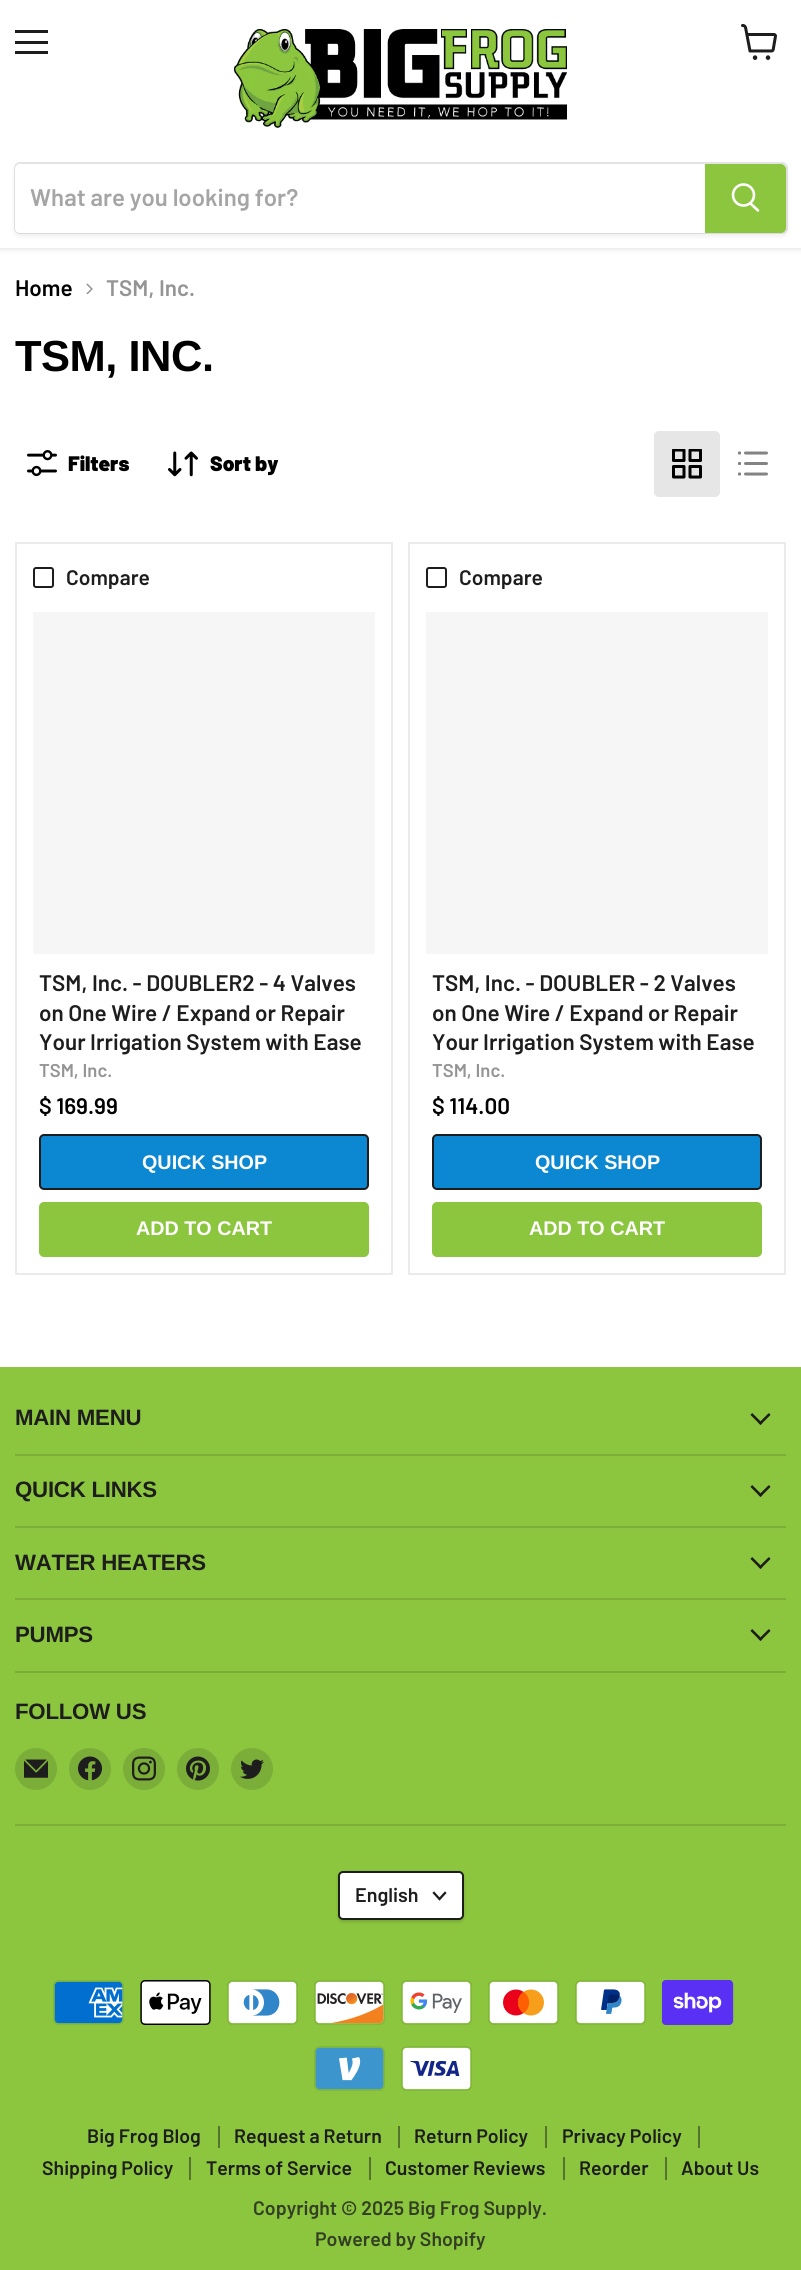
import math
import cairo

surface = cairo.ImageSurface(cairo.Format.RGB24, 801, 2270)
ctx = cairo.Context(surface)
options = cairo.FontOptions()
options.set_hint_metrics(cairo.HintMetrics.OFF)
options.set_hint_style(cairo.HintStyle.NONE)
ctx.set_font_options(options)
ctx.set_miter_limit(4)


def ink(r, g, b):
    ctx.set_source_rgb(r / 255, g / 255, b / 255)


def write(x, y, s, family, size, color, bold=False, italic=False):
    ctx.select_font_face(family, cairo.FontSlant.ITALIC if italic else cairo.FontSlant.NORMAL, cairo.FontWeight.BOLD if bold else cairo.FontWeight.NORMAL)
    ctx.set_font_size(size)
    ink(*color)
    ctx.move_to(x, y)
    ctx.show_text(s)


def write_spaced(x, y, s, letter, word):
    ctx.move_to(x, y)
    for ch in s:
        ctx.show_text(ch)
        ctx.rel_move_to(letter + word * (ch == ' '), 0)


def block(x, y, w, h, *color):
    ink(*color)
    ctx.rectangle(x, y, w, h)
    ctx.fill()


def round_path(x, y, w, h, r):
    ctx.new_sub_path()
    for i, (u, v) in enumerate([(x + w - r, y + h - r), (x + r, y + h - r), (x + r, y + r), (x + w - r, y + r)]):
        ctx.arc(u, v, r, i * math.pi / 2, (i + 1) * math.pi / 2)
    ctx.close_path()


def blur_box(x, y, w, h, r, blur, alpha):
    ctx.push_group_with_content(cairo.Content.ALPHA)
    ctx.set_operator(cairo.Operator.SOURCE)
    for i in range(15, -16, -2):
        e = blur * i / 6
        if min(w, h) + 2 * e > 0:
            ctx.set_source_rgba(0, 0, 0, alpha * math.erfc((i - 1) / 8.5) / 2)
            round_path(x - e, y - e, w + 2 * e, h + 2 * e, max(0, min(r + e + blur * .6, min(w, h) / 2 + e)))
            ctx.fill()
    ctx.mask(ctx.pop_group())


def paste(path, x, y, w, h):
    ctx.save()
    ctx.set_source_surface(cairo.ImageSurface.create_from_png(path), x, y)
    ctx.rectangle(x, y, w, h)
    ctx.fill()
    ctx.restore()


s1 = dict(family="Barlow SemiBold", size=24, color=(165, 165, 165))
s2 = dict(family="Barlow SemiBold", size=22.5, color=(0, 0, 0))
s3 = dict(family="Barlow SemiBold", size=22.5, color=(148, 148, 148))
s4 = dict(family="Barlow Black", size=21, color=(0, 0, 0))
s5 = dict(family="Barlow SemiBold", size=21, color=(29, 29, 29))
s6 = dict(family="Barlow SemiBold", size=22.5, color=(29, 29, 29))
s7 = dict(family="Barlow SemiBold", size=18.5, color=(148, 148, 148))
s8 = dict(family="Liberation Sans", size=19.75, color=(255, 255, 255), bold=True)
s9 = dict(family="Barlow SemiBold", size=19.75, color=(29, 29, 29))
s10 = dict(family="Barlow SemiBold", size=19.5, color=(29, 29, 29))
s11 = dict(family="Barlow SemiBold", size=19.5, color=(51, 63, 36))

ink(255, 255, 255)
ctx.paint()
ink(128, 128, 128)
blur_box(0, -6, 801, 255, 0, 3, 0.25)
block(0, 0, 801, 248, 255, 255, 255)
block(15, 30, 33, 3, 29, 29, 29)
block(15, 41, 33, 3, 29, 29, 29)
block(15, 51, 33, 3, 29, 29, 29)
paste("pic1.png", 741, 24, 36, 36)
paste("pic2.png", 234, 29, 333, 100)
ink(128, 128, 128)
blur_box(14, 165, 774, 72, 6, 2, 0.11)
round_path(15, 163, 772, 70, 5)
ctx.set_source_rgba(0.502, 0.502, 0.502, 0.2)
ctx.stroke()
ink(255, 255, 255)
ctx.new_path()
ctx.move_to(20, 164)
ctx.line_to(705, 164)
ctx.line_to(705, 233)
ctx.line_to(20, 233)
ctx.curve_to(17, 233, 15, 231, 15, 228)
ctx.line_to(15, 169)
ctx.curve_to(15, 166, 17, 164, 20, 164)
ctx.close_path()
ctx.fill()
write(30, 206, "What are you looking for?", **s1)
ink(140, 198, 62)
ctx.new_path()
ctx.move_to(706, 165)
ctx.line_to(781, 165)
ctx.curve_to(783, 165, 785, 167, 785, 169)
ctx.line_to(785, 228)
ctx.curve_to(785, 230, 783, 232, 781, 232)
ctx.line_to(706, 232)
ctx.close_path()
ctx.fill_preserve()
ctx.stroke()
ctx.new_path()
ctx.move_to(758, 210.5)
ctx.line_to(750.5, 203.5)
ink(255, 255, 255)
ctx.set_line_width(2.6)
ctx.set_line_cap(cairo.LineCap.ROUND)
ctx.stroke()
ctx.arc(743.5, 195, 10.5, 0, 2 * math.pi)
ctx.set_line_cap(cairo.LineCap.BUTT)
ctx.stroke()
write(15, 296, "Home", **s2)
paste("pic3.png", 86, 283, 7, 12)
write(106, 296, "TSM, Inc.", **s3)
ctx.select_font_face("Liberation Sans", cairo.FontSlant.NORMAL, cairo.FontWeight.BOLD)
ctx.set_font_size(43.5)
ink(0, 0, 0)
write_spaced(15, 371, "TSM, INC.", -0.5, 0)
paste("pic4.png", 27, 450, 30, 27)
write(68, 471, "Filters", **s4)
paste("pic5.png", 168, 451, 30, 26)
write(210, 471, "Sort by", **s4)
ink(230, 230, 230)
round_path(654, 431, 66, 66, 5)
ctx.fill()
paste("pic6.png", 672, 449, 30, 30)
paste("pic7.png", 738, 451, 30, 25)
ctx.rectangle(16, 543, 376, 731)
ink(235, 235, 235)
ctx.set_line_width(2)
ctx.stroke()
round_path(34, 568, 19, 19, 2)
ink(29, 29, 29)
ctx.stroke()
write(66, 585, "Compare", **s5)
block(33, 612, 342, 342, 246, 246, 246)
write(39, 991, "TSM, Inc. - DOUBLER2 - 4 Valves", **s6)
write(39, 1021, "on One Wire / Expand or Repair", **s6)
write(39, 1050, "Your Irrigation System with Ease", **s6)
write(39, 1077, "TSM, Inc.", **s7)
write(39, 1114, "$ 169.99", **s2)
ink(12, 136, 210)
round_path(40, 1135, 328, 54, 4)
ctx.fill_preserve()
ink(29, 29, 29)
ctx.stroke()
write(142, 1169, "QUICK SHOP", **s8)
ink(140, 198, 62)
round_path(40, 1203, 328, 53, 4)
ctx.fill_preserve()
ctx.stroke()
write(136, 1235, "ADD TO CART", **s8)
ctx.rectangle(409, 543, 376, 731)
ink(235, 235, 235)
ctx.stroke()
round_path(427, 568, 19, 19, 2)
ink(29, 29, 29)
ctx.stroke()
write(459, 585, "Compare", **s5)
block(426, 612, 342, 342, 246, 246, 246)
write(432, 991, "TSM, Inc. - DOUBLER - 2 Valves", **s6)
write(432, 1021, "on One Wire / Expand or Repair", **s6)
write(432, 1050, "Your Irrigation System with Ease", **s6)
write(432, 1077, "TSM, Inc.", **s7)
write(432, 1114, "$ 114.00", **s2)
ink(12, 136, 210)
round_path(433, 1135, 328, 54, 4)
ctx.fill_preserve()
ink(29, 29, 29)
ctx.stroke()
write(535, 1169, "QUICK SHOP", **s8)
ink(140, 198, 62)
round_path(433, 1203, 328, 53, 4)
ctx.fill_preserve()
ctx.stroke()
write(529, 1235, "ADD TO CART", **s8)
block(0, 1367, 801, 903, 140, 198, 62)
block(15, 1454, 771, 2, 123, 173, 57)
ctx.set_font_size(22.25)
ink(29, 29, 29)
write_spaced(15, 1425, "MAIN MENU", -0.25, 0)
paste("pic8.png", 750, 1413, 21, 12)
block(15, 1526, 771, 2, 123, 173, 57)
ink(29, 29, 29)
write_spaced(15, 1497, "QUICK LINKS", -0.25, 0)
paste("pic8.png", 750, 1485, 21, 12)
block(15, 1598, 771, 2, 123, 173, 57)
ink(29, 29, 29)
write_spaced(15, 1570, "WATER HEATERS", -0.25, 0)
paste("pic8.png", 750, 1557, 21, 12)
block(15, 1671, 771, 2, 123, 173, 57)
ink(29, 29, 29)
write_spaced(15, 1642, "PUMPS", -0.25, 0)
paste("pic8.png", 750, 1629, 21, 12)
block(15, 1824, 771, 2, 123, 173, 57)
ink(29, 29, 29)
write_spaced(15, 1719, "FOLLOW US", -0.25, 0)
ink(123, 173, 57)
ctx.new_path()
ctx.arc(36, 1769, 21, 0, 2 * math.pi)
ctx.fill()
paste("pic9.png", 24, 1759, 24, 19)
ctx.arc(90, 1769, 21, 0, 2 * math.pi)
ctx.fill()
paste("pic10.png", 78, 1756, 24, 25)
ctx.arc(144, 1769, 21, 0, 2 * math.pi)
ctx.fill()
paste("pic11.png", 132, 1756, 24, 25)
ctx.arc(198, 1769, 21, 0, 2 * math.pi)
ctx.fill()
paste("pic12.png", 186, 1756, 24, 25)
ctx.arc(252, 1769, 21, 0, 2 * math.pi)
ctx.fill()
paste("pic13.png", 240, 1759, 24, 20)
ink(0, 0, 0)
blur_box(338, 1872, 126, 50, 5, 1.5, 0.15)
ink(255, 255, 255)
round_path(339, 1872, 124, 47, 4)
ctx.fill_preserve()
ink(29, 29, 29)
ctx.stroke()
write(355, 1902, "English", **s9)
ctx.new_path()
ctx.move_to(439.5, 1899)
ctx.line_to(445, 1893)
ctx.move_to(439.5, 1899)
ctx.line_to(434, 1893)
ctx.set_line_width(2.3)
ctx.set_line_cap(cairo.LineCap.SQUARE)
ctx.stroke()
paste("pic14.png", 53, 1980, 71, 45)
paste("pic15.png", 140, 1980, 71, 45)
paste("pic16.png", 227, 1980, 71, 45)
paste("pic17.png", 314, 1980, 71, 45)
paste("pic18.png", 401, 1980, 71, 45)
paste("pic19.png", 488, 1980, 71, 45)
paste("pic20.png", 575, 1980, 71, 45)
paste("pic21.png", 662, 1980, 72, 45)
paste("pic22.png", 314, 2046, 71, 45)
paste("pic23.png", 401, 2046, 71, 45)
block(218, 2126, 2, 22, 85, 114, 46)
write(87, 2143, "Big Frog Blog", **s10)
block(398, 2126, 2, 22, 85, 114, 46)
write(234, 2143, "Request a Return", **s10)
block(545, 2126, 2, 22, 85, 114, 46)
write(414, 2143, "Return Policy", **s10)
block(698, 2126, 2, 22, 85, 114, 46)
write(562, 2143, "Privacy Policy", **s10)
block(189, 2157, 2, 23, 85, 114, 46)
write(42, 2175, "Shipping Policy", **s10)
block(369, 2157, 2, 23, 85, 114, 46)
write(206, 2175, "Terms of Service", **s10)
block(563, 2157, 2, 23, 85, 114, 46)
write(385, 2175, "Customer Reviews", **s10)
block(665, 2157, 2, 23, 85, 114, 46)
write(579, 2175, "Reorder", **s10)
write(681, 2175, "About Us", **s10)
write(253, 2215, "Copyright © 2025 Big Frog Supply.", **s11)
write(315, 2246, "Powered by Shopify", **s11)
surface.write_to_png("screenshot.png")
